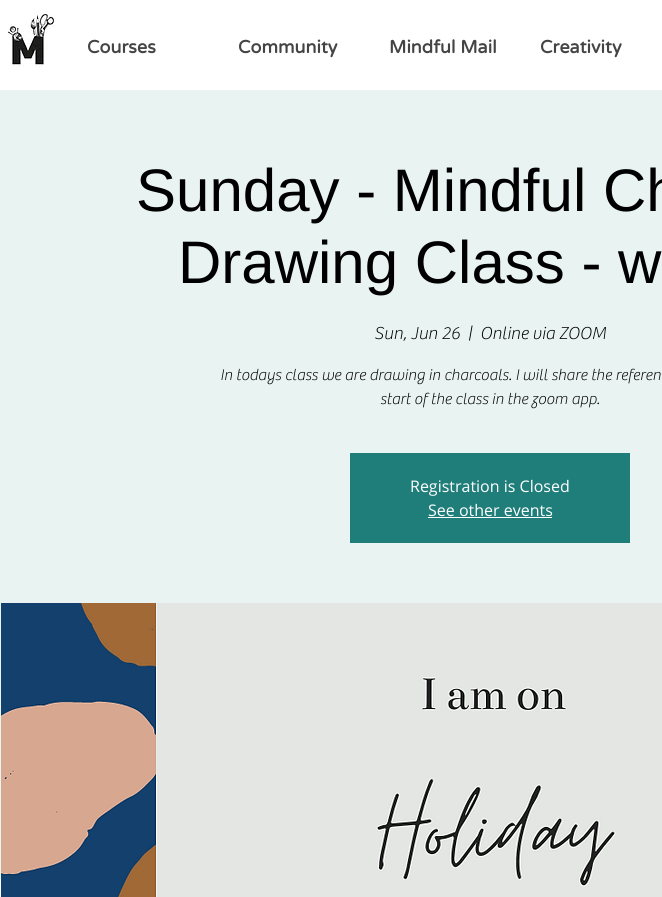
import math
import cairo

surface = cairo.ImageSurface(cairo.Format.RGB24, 662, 897)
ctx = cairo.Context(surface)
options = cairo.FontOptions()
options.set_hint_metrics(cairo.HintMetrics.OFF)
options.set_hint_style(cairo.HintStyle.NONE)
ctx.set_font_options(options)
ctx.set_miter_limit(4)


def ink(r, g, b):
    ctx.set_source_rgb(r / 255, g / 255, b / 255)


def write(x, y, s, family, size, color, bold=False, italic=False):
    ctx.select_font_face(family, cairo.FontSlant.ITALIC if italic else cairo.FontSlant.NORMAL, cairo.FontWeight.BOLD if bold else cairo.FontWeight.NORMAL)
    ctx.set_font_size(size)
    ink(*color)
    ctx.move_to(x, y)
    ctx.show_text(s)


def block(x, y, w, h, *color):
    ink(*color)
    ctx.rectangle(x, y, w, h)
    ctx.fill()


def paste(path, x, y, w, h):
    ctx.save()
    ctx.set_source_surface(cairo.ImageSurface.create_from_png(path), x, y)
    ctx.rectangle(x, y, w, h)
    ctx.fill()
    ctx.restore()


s1 = dict(family="Varela Round", size=18, color=(68, 68, 68), bold=True)
s2 = dict(family="Liberation Sans", size=60, color=(0, 0, 0))
s3 = dict(family="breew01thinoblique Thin", size=18, color=(0, 0, 0))
s4 = dict(family="breew01thinoblique Thin", size=16, color=(0, 0, 0))
s5 = dict(family="Open Sans", size=16, color=(255, 255, 255))

ink(255, 255, 255)
ctx.paint()
paste("pic1.png", 8, 11, 48, 56)
write(87, 53, "Courses", **s1)
write(238, 53, "Community", **s1)
write(389, 53, "Mindful Mail", **s1)
write(540, 53, "Creativity", **s1)
block(0, 90, 662, 789, 233, 243, 242)
write(136, 211, "Sunday - Mindful Ch", **s2)
write(178, 283, "Drawing Class - w", **s2)
write(374, 339, "Sun, Jun 26", **s3)
write(468, 339, "|", **s3)
write(480, 339, "Online via ZOOM", **s3)
write(220, 380, "In todays class we are drawing in charcoals. I will share the referen", **s4)
write(380, 404, "start of the class in the zoom app.", **s4)
block(350, 453, 280, 90, 31, 126, 122)
write(410, 492, "Registration is Closed", **s5)
write(428, 516, "See other events", **s5)
block(428, 517, 124, 1, 255, 255, 255)
paste("pic2.png", 1, 603, 661, 294)
surface.write_to_png("screenshot.png")
